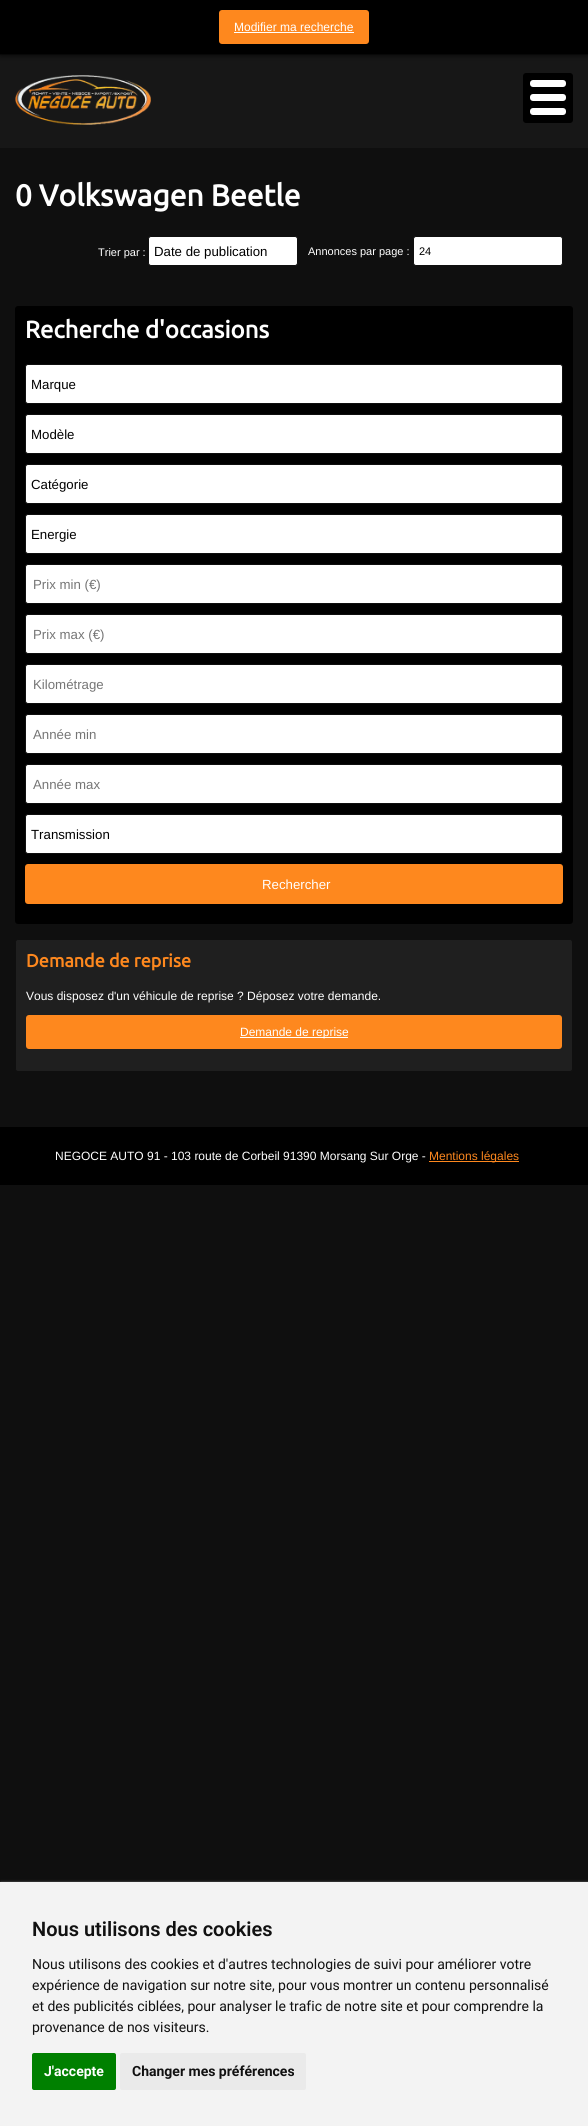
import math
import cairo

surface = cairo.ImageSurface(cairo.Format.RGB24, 588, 2126)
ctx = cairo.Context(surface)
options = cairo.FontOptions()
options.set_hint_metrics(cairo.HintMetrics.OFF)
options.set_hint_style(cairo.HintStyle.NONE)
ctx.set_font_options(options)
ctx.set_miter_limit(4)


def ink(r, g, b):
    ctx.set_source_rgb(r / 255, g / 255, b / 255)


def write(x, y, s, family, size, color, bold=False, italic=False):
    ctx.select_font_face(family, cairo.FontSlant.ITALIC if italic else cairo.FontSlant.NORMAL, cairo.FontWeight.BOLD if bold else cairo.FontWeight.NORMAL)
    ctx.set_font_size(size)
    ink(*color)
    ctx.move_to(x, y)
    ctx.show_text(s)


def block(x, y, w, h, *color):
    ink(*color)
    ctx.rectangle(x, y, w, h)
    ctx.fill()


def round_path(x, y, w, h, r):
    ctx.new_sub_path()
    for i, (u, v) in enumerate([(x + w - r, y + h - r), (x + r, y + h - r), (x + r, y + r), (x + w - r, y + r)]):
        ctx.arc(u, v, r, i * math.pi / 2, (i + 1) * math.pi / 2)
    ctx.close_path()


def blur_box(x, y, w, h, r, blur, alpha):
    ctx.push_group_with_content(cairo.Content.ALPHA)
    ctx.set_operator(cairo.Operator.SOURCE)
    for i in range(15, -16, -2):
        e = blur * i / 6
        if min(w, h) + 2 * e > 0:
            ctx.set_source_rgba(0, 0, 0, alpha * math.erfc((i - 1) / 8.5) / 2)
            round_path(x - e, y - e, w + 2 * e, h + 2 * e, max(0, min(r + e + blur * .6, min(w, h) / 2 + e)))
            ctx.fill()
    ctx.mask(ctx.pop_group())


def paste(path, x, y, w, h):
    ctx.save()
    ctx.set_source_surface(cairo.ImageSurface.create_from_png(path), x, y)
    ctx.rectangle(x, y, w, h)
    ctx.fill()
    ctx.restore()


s1 = dict(family="Liberation Sans", size=12, color=(255, 255, 255))
s2 = dict(family="Ubuntu", size=24, color=(255, 255, 255), bold=True)
s3 = dict(family="Liberation Sans", size=13.25, color=(0, 0, 0))
s4 = dict(family="Liberation Sans", size=13.25, color=(117, 117, 117))
s5 = dict(family="Liberation Sans", size=13.25, color=(255, 255, 255))
s6 = dict(family="Ubuntu", size=18, color=(254, 136, 30), bold=True)
s7 = dict(family="Ubuntu", size=30, color=(255, 255, 255), bold=True)
s8 = dict(family="Liberation Sans", size=11, color=(255, 255, 255))
s9 = dict(family="Liberation Sans", size=11, color=(0, 0, 0))
s10 = dict(family="Liberation Sans", size=12, color=(254, 136, 30))
s11 = dict(family="Roboto SemiBold", size=20, color=(17, 17, 17))
s12 = dict(family="Roboto", size=14, color=(17, 17, 17))
s13 = dict(family="Roboto", size=14, color=(255, 255, 255), bold=True)
s14 = dict(family="Roboto", size=14, color=(17, 17, 17), bold=True)

ink(15, 15, 15)
ctx.paint()
ink(0, 0, 0)
round_path(15, 306, 558, 618, 3)
ctx.fill()
block(0, 55, 588, 93, 23, 23, 23)
ink(0, 0, 0)
blur_box(0, 0, 588, 54, 0, 3.5, 1)
block(0, 0, 588, 54, 0, 0, 0)
ink(254, 136, 30)
round_path(219, 10, 150, 34, 3)
ctx.fill()
write(234, 31, "Modifier ma recherche", **s1)
block(234, 32, 120, 1, 255, 255, 255)
write(25, 338, "Recherche d'occasions", **s2)
round_path(25.5, 364.5, 537, 39, 2.5)
ctx.fill_preserve()
ink(15, 15, 15)
ctx.set_line_width(1)
ctx.stroke()
write(31, 389, "Marque", **s3)
ink(255, 255, 255)
round_path(25.5, 414.5, 537, 39, 2.5)
ctx.fill_preserve()
ink(15, 15, 15)
ctx.stroke()
write(31, 439, "Modèle", **s3)
ink(255, 255, 255)
round_path(25.5, 464.5, 537, 39, 2.5)
ctx.fill_preserve()
ink(15, 15, 15)
ctx.stroke()
write(31, 489, "Catégorie", **s3)
ink(255, 255, 255)
round_path(25.5, 514.5, 537, 39, 2.5)
ctx.fill_preserve()
ink(15, 15, 15)
ctx.stroke()
write(31, 539, "Energie", **s3)
ink(255, 255, 255)
round_path(25.5, 564.5, 537, 39, 2.5)
ctx.fill_preserve()
ink(15, 15, 15)
ctx.stroke()
write(33, 589, "Prix min (€)", **s4)
ink(255, 255, 255)
round_path(25.5, 614.5, 537, 39, 2.5)
ctx.fill_preserve()
ink(15, 15, 15)
ctx.stroke()
write(33, 639, "Prix max (€)", **s4)
ink(255, 255, 255)
round_path(25.5, 664.5, 537, 39, 2.5)
ctx.fill_preserve()
ink(15, 15, 15)
ctx.stroke()
write(33, 689, "Kilométrage", **s4)
ink(255, 255, 255)
round_path(25.5, 714.5, 537, 39, 2.5)
ctx.fill_preserve()
ink(15, 15, 15)
ctx.stroke()
write(33, 739, "Année min", **s4)
ink(255, 255, 255)
round_path(25.5, 764.5, 537, 39, 2.5)
ctx.fill_preserve()
ink(15, 15, 15)
ctx.stroke()
write(33, 789, "Année max", **s4)
ink(255, 255, 255)
round_path(25.5, 814.5, 537, 39, 2.5)
ctx.fill_preserve()
ink(15, 15, 15)
ctx.stroke()
write(31, 839, "Transmission", **s3)
ink(254, 136, 30)
round_path(25, 864, 538, 40, 3)
ctx.fill()
write(262, 889, "Rechercher", **s5)
ink(31, 31, 31)
round_path(15.5, 939.5, 557, 132, 2.5)
ctx.fill_preserve()
ink(15, 15, 15)
ctx.stroke()
write(26, 967, "Demande de reprise", **s6)
write(26, 1000, "Vous disposez d'un véhicule de reprise ? Déposez votre demande.", **s1)
ink(254, 136, 30)
round_path(26, 1015, 536, 34, 3)
ctx.fill()
block(240, 1037, 108, 1, 255, 255, 255)
write(240, 1036, "Demande de reprise", **s1)
write(15, 206, "0 Volkswagen Beetle", **s7)
write(98, 256, "Trier par :", **s8)
round_path(148.5, 236.5, 149, 29, 2.5)
ctx.fill_preserve()
ink(15, 15, 15)
ctx.stroke()
write(154, 256, "Date de publication", **s3)
write(308, 255, "Annonces par page :", **s8)
round_path(413.5, 236.5, 149, 29, 2.5)
ctx.fill_preserve()
ink(15, 15, 15)
ctx.stroke()
write(419, 255, "24", **s9)
paste("pic1.png", 15, 75, 136, 50)
round_path(523, 73, 50, 50, 3)
ctx.fill()
ink(255, 255, 255)
round_path(530, 80, 36, 7, 3)
ctx.fill()
round_path(530, 94, 36, 7, 3)
ctx.fill()
round_path(530, 108, 36, 7, 3)
ctx.fill()
block(0, 1127, 588, 58, 0, 0, 0)
write(55, 1160, "NEGOCE AUTO 91 - 103 route de Corbeil 91390 Morsang Sur Orge -", **s1)
block(429, 1161, 90, 1, 254, 136, 30)
write(429, 1160, "Mentions légales", **s10)
ink(204, 204, 204)
blur_box(1, 1883, 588, 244, 0, 1.5, 1)
block(0, 1882, 588, 244, 243, 243, 243)
write(32, 1936, "Nous utilisons des cookies", **s11)
write(32, 1969, "Nous utilisons des cookies et d'autres technologies de suivi pour améliorer votre", **s12)
write(32, 1990, "expérience de navigation sur notre site, pour vous montrer un contenu personnalisé", **s12)
write(32, 2011, "et des publicités ciblées, pour analyser le trafic de notre site et pour comprendre la", **s12)
write(32, 2032, "provenance de nos visiteurs.", **s12)
ink(0, 128, 0)
round_path(32, 2053, 84, 37, 2)
ctx.fill()
write(44, 2076, "J'accepte", **s13)
ink(234, 234, 234)
round_path(120, 2053, 186, 37, 2)
ctx.fill()
write(132, 2076, "Changer mes préférences", **s14)
surface.write_to_png("screenshot.png")
